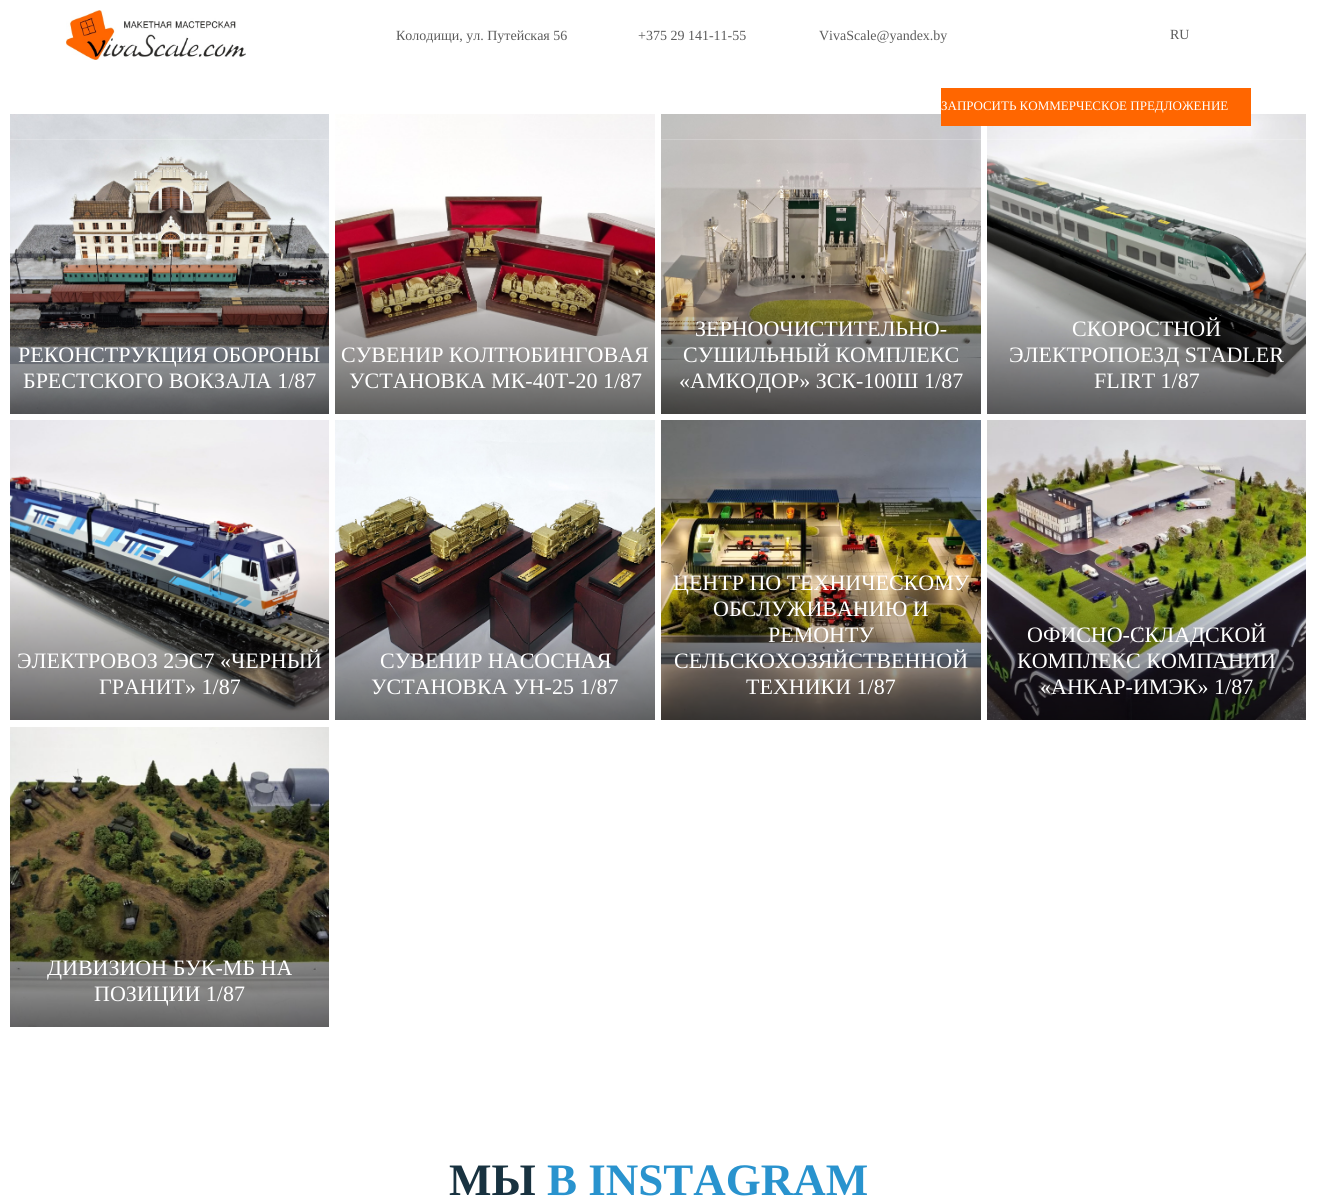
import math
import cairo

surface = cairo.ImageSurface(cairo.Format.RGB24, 1317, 1202)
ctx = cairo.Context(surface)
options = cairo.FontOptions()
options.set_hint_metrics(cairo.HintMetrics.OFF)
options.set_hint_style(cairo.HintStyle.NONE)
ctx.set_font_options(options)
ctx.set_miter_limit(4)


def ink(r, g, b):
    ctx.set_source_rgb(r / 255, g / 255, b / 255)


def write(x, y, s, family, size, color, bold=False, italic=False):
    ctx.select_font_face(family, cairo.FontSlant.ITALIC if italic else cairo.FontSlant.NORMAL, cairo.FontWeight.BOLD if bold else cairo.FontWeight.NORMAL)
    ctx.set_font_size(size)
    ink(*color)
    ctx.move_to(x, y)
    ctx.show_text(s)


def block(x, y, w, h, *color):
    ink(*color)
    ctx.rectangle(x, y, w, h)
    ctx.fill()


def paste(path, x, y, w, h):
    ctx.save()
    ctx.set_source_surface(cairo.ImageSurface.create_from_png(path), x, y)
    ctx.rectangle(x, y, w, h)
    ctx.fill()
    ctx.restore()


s1 = dict(family="Liberation Serif", size=14, color=(92, 92, 92))
s2 = dict(family="Liberation Serif", size=13, color=(255, 255, 255))
s3 = dict(family="Liberation Serif", size=22, color=(255, 255, 255))
s4 = dict(family="Liberation Serif", size=45, color=(24, 50, 64), bold=True)
s5 = dict(family="Liberation Serif", size=45, color=(41, 147, 206), bold=True)

ink(255, 255, 255)
ctx.paint()
paste("pic1.png", 66, 10, 180, 50)
write(396, 40, "Колодищи, ул. Путейская 56", **s1)
write(638, 40, "+375 29 141-11-55", **s1)
write(819, 40, "VivaScale@yandex.by", **s1)
write(1170, 39, "RU", **s1)
paste("pic2.png", 10, 114, 319, 300)
paste("pic3.png", 335, 114, 320, 300)
paste("pic4.png", 661, 114, 320, 300)
paste("pic5.png", 987, 114, 319, 300)
ctx.set_source_rgba(1, 1, 1, 0.2)
ctx.rectangle(10, 139, 1296, 1)
ctx.fill()
block(941, 88, 310, 38, 255, 102, 0)
write(941, 110, "ЗАПРОСИТЬ КОММЕРЧЕСКОЕ ПРЕДЛОЖЕНИЕ", **s2)
write(18, 362, "РЕКОНСТРУКЦИЯ ОБОРОНЫ", **s3)
write(23, 388, "БРЕСТСКОГО ВОКЗАЛА 1/87", **s3)
write(341, 362, "СУВЕНИР КОЛТЮБИНГОВАЯ", **s3)
write(349, 388, "УСТАНОВКА МК-40Т-20 1/87", **s3)
write(695, 336, "ЗЕРНООЧИСТИТЕЛЬНО-", **s3)
write(683, 362, "СУШИЛЬНЫЙ КОМПЛЕКС", **s3)
write(679, 388, "«АМКОДОР» ЗСК-100Ш 1/87", **s3)
write(1072, 336, "СКОРОСТНОЙ", **s3)
write(1009, 362, "ЭЛЕКТРОПОЕЗД STADLER", **s3)
write(1094, 388, "FLIRT 1/87", **s3)
paste("pic6.png", 10, 420, 319, 300)
write(17, 668, "ЭЛЕКТРОВОЗ 2ЭС7 «ЧЕРНЫЙ", **s3)
write(99, 694, "ГРАНИТ» 1/87", **s3)
paste("pic7.png", 335, 420, 320, 300)
write(380, 668, "СУВЕНИР НАСОСНАЯ", **s3)
write(371, 694, "УСТАНОВКА УН-25 1/87", **s3)
paste("pic8.png", 661, 420, 320, 300)
write(673, 590, "ЦЕНТР ПО ТЕХНИЧЕСКОМУ", **s3)
write(713, 616, "ОБСЛУЖИВАНИЮ И", **s3)
write(768, 642, "РЕМОНТУ", **s3)
write(674, 668, "СЕЛЬСКОХОЗЯЙСТВЕННОЙ", **s3)
write(746, 694, "ТЕХНИКИ 1/87", **s3)
paste("pic9.png", 987, 420, 319, 300)
write(1027, 642, "ОФИСНО-СКЛАДСКОЙ", **s3)
write(1017, 668, "КОМПЛЕКС КОМПАНИИ", **s3)
write(1040, 694, "«АНКАР-ИМЭК» 1/87", **s3)
paste("pic10.png", 10, 727, 319, 300)
write(47, 975, "ДИВИЗИОН БУК-МБ НА", **s3)
write(94, 1001, "ПОЗИЦИИ 1/87", **s3)
write(449, 1195, "МЫ", **s4)
write(547, 1195, "В INSTAGRAM", **s5)
surface.write_to_png("screenshot.png")
